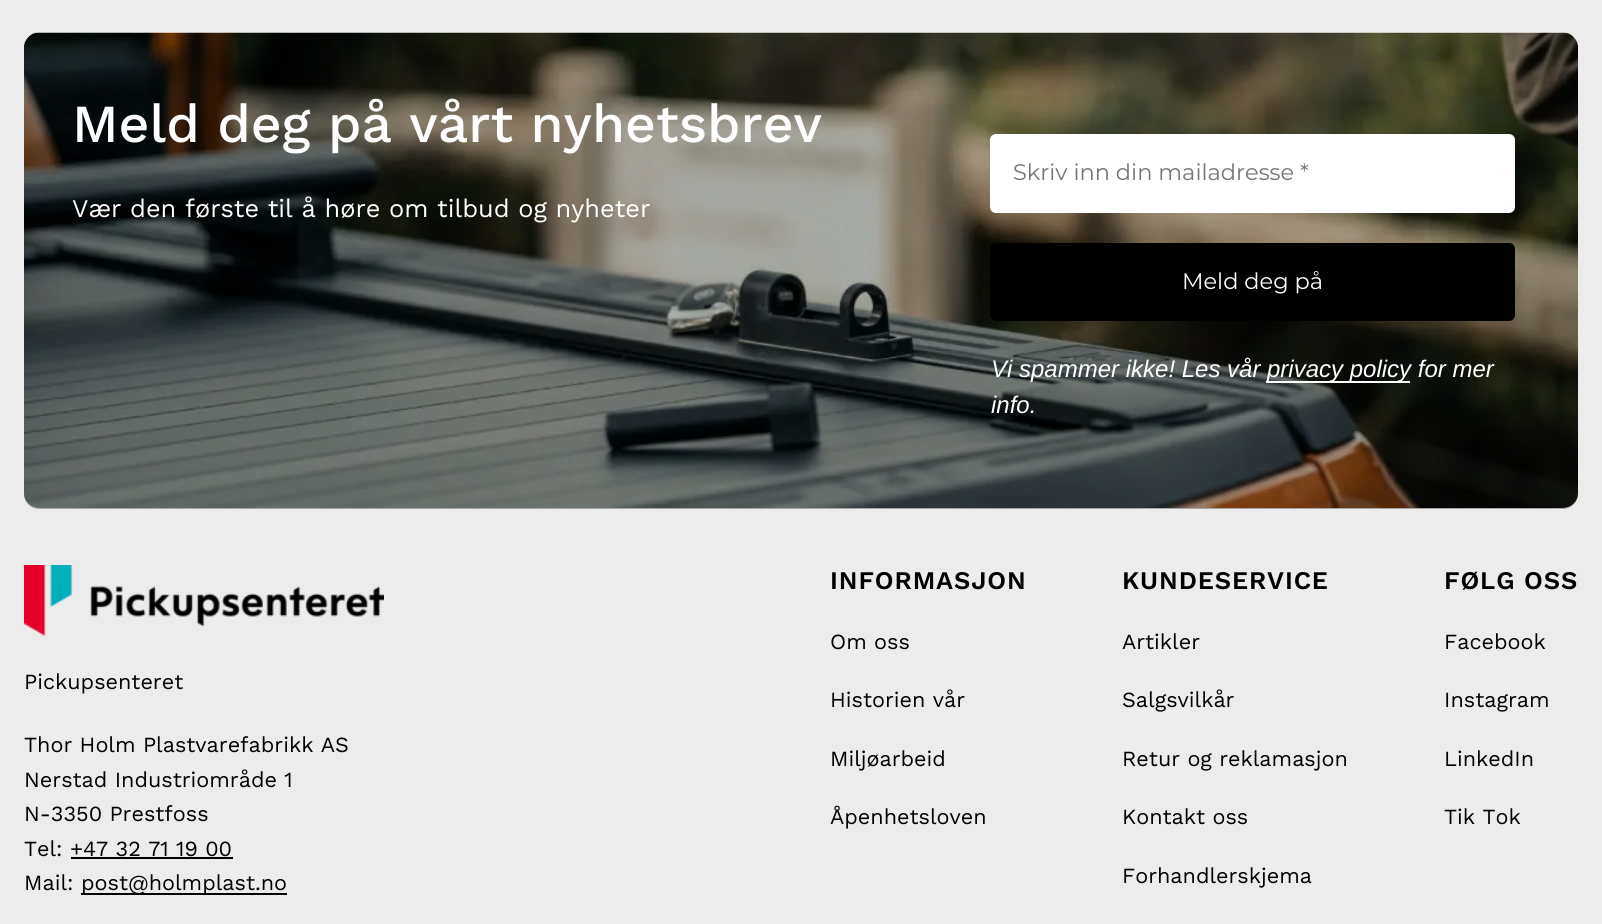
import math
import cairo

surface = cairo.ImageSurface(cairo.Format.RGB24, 1602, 924)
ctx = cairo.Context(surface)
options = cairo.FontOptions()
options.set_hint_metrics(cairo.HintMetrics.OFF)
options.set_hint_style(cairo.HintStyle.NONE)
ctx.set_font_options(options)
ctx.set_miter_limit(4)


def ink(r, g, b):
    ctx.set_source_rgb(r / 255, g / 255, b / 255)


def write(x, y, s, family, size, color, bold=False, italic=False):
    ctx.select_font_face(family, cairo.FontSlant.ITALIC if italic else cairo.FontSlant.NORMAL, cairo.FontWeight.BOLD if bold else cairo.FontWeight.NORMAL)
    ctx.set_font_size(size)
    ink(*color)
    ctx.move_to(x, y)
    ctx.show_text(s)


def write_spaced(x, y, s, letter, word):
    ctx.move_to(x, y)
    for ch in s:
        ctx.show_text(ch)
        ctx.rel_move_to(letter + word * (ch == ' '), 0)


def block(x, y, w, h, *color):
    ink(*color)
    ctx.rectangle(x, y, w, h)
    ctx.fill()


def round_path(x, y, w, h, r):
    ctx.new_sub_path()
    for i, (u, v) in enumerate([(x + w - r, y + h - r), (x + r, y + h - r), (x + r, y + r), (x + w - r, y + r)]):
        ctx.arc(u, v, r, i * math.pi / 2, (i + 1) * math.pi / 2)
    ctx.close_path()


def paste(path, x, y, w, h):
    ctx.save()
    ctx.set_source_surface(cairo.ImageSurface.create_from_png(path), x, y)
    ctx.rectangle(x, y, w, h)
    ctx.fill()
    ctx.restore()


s1 = dict(family="Work Sans Medium", size=53.5, color=(255, 255, 255))
s2 = dict(family="Work Sans", size=25.35, color=(255, 255, 255))
s3 = dict(family="Montserrat", size=22.5, color=(117, 117, 117))
s4 = dict(family="Montserrat", size=22.5, color=(255, 255, 255))
s5 = dict(family="Liberation Sans", size=24, color=(255, 255, 255), italic=True)
s6 = dict(family="Work Sans", size=21.6, color=(0, 0, 0))

ink(236, 236, 236)
ctx.paint()
paste("pic1.png", 24, 32, 1554, 476)
ctx.set_source_rgba(0, 0, 0, 0.3)
round_path(24, 33, 1554, 476, 15)
ctx.fill()
write(72, 142, "Meld deg på vårt nyhetsbrev", **s1)
write(72, 217, "Vær den første til å høre om tilbud og nyheter", **s2)
round_path(990, 134, 525, 79, 6)
ctx.fill()
write(1013, 180, "Skriv inn din mailadresse *", **s3)
ink(0, 0, 0)
round_path(990, 243, 525, 78, 6)
ctx.fill()
write(1182, 289, "Meld deg på", **s4)
write(991, 377, "Vi spammer ikke! Les vår", **s5)
block(1266, 381, 144, 2, 255, 255, 255)
write(1267, 377, "privacy policy for mer", **s5)
write(991, 413, "info.", **s5)
paste("pic2.png", 24, 565, 360, 71)
write(24, 689, "Pickupsenteret", **s6)
write(24, 752, "Thor Holm Plastvarefabrikk AS", **s6)
write(24, 787, "Nerstad Industriområde 1", **s6)
write(24, 821, "N-3350 Prestfoss", **s6)
write(24, 856, "Tel: +47 32 71 19 00", **s6)
block(71, 857, 162, 2, 0, 0, 0)
write(24, 890, "Mail:", **s6)
block(81, 893, 206, 2, 0, 0, 0)
write(81, 890, "post@holmplast.no", **s6)
ctx.select_font_face("Work Sans SemiBold")
ctx.set_font_size(25.35)
write_spaced(830, 589, "INFORMASJON", 0.9, 0)
write(830, 649, "Om oss", **s6)
write(830, 707, "Historien vår", **s6)
write(830, 766, "Miljøarbeid", **s6)
write(830, 824, "Åpenhetsloven", **s6)
ctx.select_font_face("Work Sans SemiBold")
ctx.set_font_size(25.35)
write_spaced(1122, 589, "KUNDESERVICE", 0.9, 0)
write(1122, 649, "Artikler", **s6)
write(1122, 707, "Salgsvilkår", **s6)
write(1122, 766, "Retur og reklamasjon", **s6)
write(1122, 824, "Kontakt oss", **s6)
write(1122, 883, "Forhandlerskjema", **s6)
ctx.select_font_face("Work Sans SemiBold")
ctx.set_font_size(25.35)
write_spaced(1444, 589, "FØLG OSS", 0.9, 0)
write(1444, 649, "Facebook", **s6)
write(1444, 707, "Instagram", **s6)
write(1444, 766, "LinkedIn", **s6)
write(1444, 824, "Tik Tok", **s6)
surface.write_to_png("screenshot.png")
